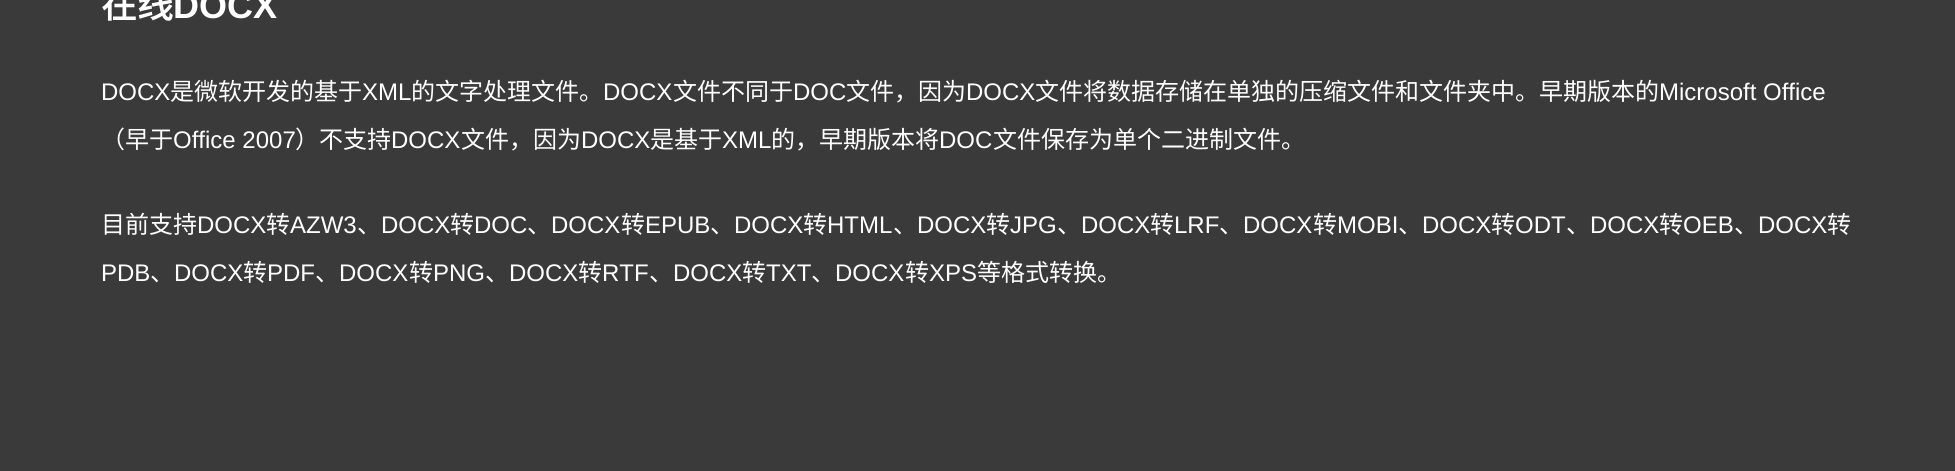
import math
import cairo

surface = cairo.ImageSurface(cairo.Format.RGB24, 1955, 471)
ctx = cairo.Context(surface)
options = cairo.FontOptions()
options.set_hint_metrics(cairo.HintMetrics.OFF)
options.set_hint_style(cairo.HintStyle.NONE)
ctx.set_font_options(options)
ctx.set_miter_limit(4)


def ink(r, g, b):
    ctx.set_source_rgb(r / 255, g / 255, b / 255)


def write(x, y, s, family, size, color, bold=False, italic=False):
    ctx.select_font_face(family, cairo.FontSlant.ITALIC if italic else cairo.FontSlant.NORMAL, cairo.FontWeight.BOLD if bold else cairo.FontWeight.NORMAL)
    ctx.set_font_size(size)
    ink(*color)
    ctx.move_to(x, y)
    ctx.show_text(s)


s1 = dict(family="Noto Sans CJK SC", size=36, color=(255, 255, 255), bold=True)
s2 = dict(family="Liberation Sans", size=36, color=(255, 255, 255), bold=True)
s3 = dict(family="Liberation Sans", size=24, color=(255, 255, 255))
s4 = dict(family="Noto Sans CJK SC", size=24, color=(255, 255, 255))

ink(58, 58, 58)
ctx.paint()
write(101, 18, "在线", **s1)
write(173, 18, "DOCX", **s2)
write(101, 100, "DOCX", **s3)
write(170, 100, "是微软开发的基于", **s4)
write(362, 100, "XML", **s3)
write(411, 100, "的文字处理文件。", **s4)
write(603, 100, "DOCX", **s3)
write(673, 100, "文件不同于", **s4)
write(793, 100, "DOC", **s3)
write(846, 100, "文件，因为", **s4)
write(966, 100, "DOCX", **s3)
write(1035, 100, "文件将数据存储在单独的压缩文件和文件夹中。早期版本的", **s4)
write(1659, 100, "Microsoft Office", **s3)
write(101, 148, "（早于", **s4)
write(173, 148, "Office 2007", **s3)
write(295, 148, "）不支持", **s4)
write(391, 148, "DOCX", **s3)
write(461, 148, "文件，因为", **s4)
write(581, 148, "DOCX", **s3)
write(650, 148, "是基于", **s4)
write(722, 148, "XML", **s3)
write(771, 148, "的，早期版本将", **s4)
write(939, 148, "DOC", **s3)
write(993, 148, "文件保存为单个二进制文件。", **s4)
write(101, 233, "目前支持", **s4)
write(197, 233, "DOCX", **s3)
write(266, 233, "转", **s4)
write(290, 233, "AZW3", **s3)
write(357, 233, "、", **s4)
write(381, 233, "DOCX", **s3)
write(450, 233, "转", **s4)
write(474, 233, "DOC", **s3)
write(527, 233, "、", **s4)
write(551, 233, "DOCX", **s3)
write(621, 233, "转", **s4)
write(645, 233, "EPUB", **s3)
write(710, 233, "、", **s4)
write(734, 233, "DOCX", **s3)
write(803, 233, "转", **s4)
write(827, 233, "HTML", **s3)
write(893, 233, "、", **s4)
write(917, 233, "DOCX", **s3)
write(986, 233, "转", **s4)
write(1010, 233, "JPG", **s3)
write(1057, 233, "、", **s4)
write(1081, 233, "DOCX", **s3)
write(1150, 233, "转", **s4)
write(1174, 233, "LRF", **s3)
write(1219, 233, "、", **s4)
write(1243, 233, "DOCX", **s3)
write(1313, 233, "转", **s4)
write(1337, 233, "MOBI", **s3)
write(1398, 233, "、", **s4)
write(1422, 233, "DOCX", **s3)
write(1491, 233, "转", **s4)
write(1515, 233, "ODT", **s3)
write(1566, 233, "、", **s4)
write(1590, 233, "DOCX", **s3)
write(1659, 233, "转", **s4)
write(1683, 233, "OEB", **s3)
write(1734, 233, "、", **s4)
write(1758, 233, "DOCX", **s3)
write(1827, 233, "转", **s4)
write(101, 281, "PDB", **s3)
write(150, 281, "、", **s4)
write(174, 281, "DOCX", **s3)
write(243, 281, "转", **s4)
write(267, 281, "PDF", **s3)
write(315, 281, "、", **s4)
write(339, 281, "DOCX", **s3)
write(409, 281, "转", **s4)
write(433, 281, "PNG", **s3)
write(485, 281, "、", **s4)
write(509, 281, "DOCX", **s3)
write(578, 281, "转", **s4)
write(602, 281, "RTF", **s3)
write(649, 281, "、", **s4)
write(673, 281, "DOCX", **s3)
write(742, 281, "转", **s4)
write(766, 281, "TXT", **s3)
write(811, 281, "、", **s4)
write(835, 281, "DOCX", **s3)
write(905, 281, "转", **s4)
write(929, 281, "XPS", **s3)
write(977, 281, "等格式转换。", **s4)
surface.write_to_png("screenshot.png")
